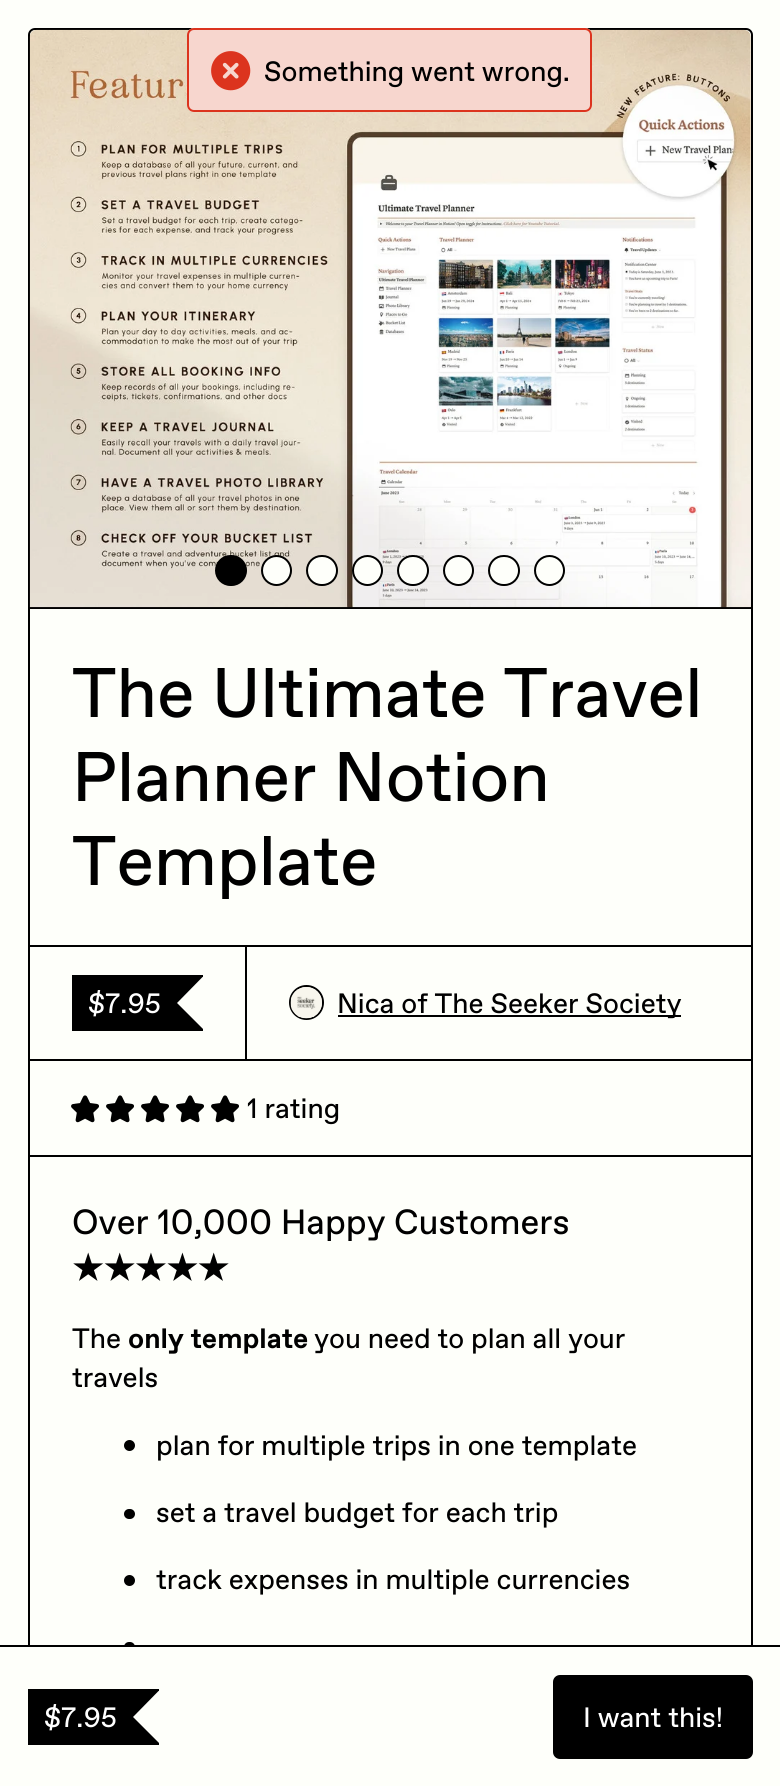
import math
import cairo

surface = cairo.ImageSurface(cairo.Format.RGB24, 780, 1786)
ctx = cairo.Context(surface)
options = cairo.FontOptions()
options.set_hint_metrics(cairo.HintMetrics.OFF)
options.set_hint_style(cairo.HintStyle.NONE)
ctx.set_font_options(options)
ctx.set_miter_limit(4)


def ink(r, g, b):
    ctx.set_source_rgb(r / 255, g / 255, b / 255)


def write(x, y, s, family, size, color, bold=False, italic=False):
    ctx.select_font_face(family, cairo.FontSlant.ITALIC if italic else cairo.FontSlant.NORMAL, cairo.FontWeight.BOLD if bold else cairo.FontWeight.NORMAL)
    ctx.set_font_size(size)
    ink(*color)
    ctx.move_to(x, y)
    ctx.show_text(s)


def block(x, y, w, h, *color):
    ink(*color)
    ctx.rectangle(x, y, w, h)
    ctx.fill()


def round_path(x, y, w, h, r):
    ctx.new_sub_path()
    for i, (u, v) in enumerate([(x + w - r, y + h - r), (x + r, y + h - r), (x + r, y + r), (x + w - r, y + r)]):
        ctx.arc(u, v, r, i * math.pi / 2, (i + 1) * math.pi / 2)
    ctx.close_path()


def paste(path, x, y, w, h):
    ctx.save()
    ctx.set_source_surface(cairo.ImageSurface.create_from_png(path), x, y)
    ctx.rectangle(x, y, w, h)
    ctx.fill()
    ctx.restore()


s1 = dict(family="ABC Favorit", size=28, color=(0, 0, 0))
s2 = dict(family="ABC Favorit", size=70, color=(0, 0, 0))
s3 = dict(family="ABC Favorit", size=28, color=(255, 255, 255))
s4 = dict(family="ABC Favorit", size=35, color=(0, 0, 0))
s5 = dict(family="DejaVu Sans", size=35, color=(0, 0, 0), bold=True)
s6 = dict(family="ABC Favorit", size=28, color=(0, 0, 0), bold=True)

ink(254, 255, 250)
ctx.paint()
round_path(29, 29, 723, 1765, 6)
ink(0, 0, 0)
ctx.stroke()
block(30, 607, 721, 2, 0, 0, 0)
paste("pic2.png", 29, 29, 722, 579)
ink(254, 255, 250)
round_path(187, 28, 405, 84, 7)
ctx.fill()
ctx.set_source_rgba(0.863, 0.204, 0.118, 0.2)
round_path(188, 29, 403, 82, 6)
ctx.fill_preserve()
ink(220, 52, 30)
ctx.stroke()
paste("pic1.png", 211, 51, 40, 40)
write(264, 81, "Something went wrong.", **s1)
paste("pic3.png", 750, 37, 1, 570)
round_path(216, 556, 30, 29, 14.5)
ctx.fill_preserve()
ctx.stroke()
ink(254, 255, 250)
ctx.arc(276.5, 570.5, 14.5, 0, 2 * math.pi)
ctx.fill_preserve()
ink(0, 0, 0)
ctx.stroke()
ink(254, 255, 250)
round_path(307, 556, 30, 29, 14.5)
ctx.fill_preserve()
ink(0, 0, 0)
ctx.stroke()
ink(254, 255, 250)
ctx.arc(367.5, 570.5, 14.5, 0, 2 * math.pi)
ctx.fill_preserve()
ink(0, 0, 0)
ctx.stroke()
ink(254, 255, 250)
round_path(398, 556, 30, 29, 14.5)
ctx.fill_preserve()
ink(0, 0, 0)
ctx.stroke()
ink(254, 255, 250)
ctx.arc(458.5, 570.5, 14.5, 0, 2 * math.pi)
ctx.fill_preserve()
ink(0, 0, 0)
ctx.stroke()
ink(254, 255, 250)
round_path(489, 556, 30, 29, 14.5)
ctx.fill_preserve()
ink(0, 0, 0)
ctx.stroke()
ink(254, 255, 250)
ctx.arc(549.5, 570.5, 14.5, 0, 2 * math.pi)
ctx.fill_preserve()
ink(0, 0, 0)
ctx.stroke()
write(72, 717, "The Ultimate Travel", **s2)
write(72, 801, "Planner Notion", **s2)
write(72, 885, "Template", **s2)
ctx.rectangle(29, 946, 217, 114)
ctx.stroke()
block(72, 975, 131, 2, 0, 0, 0)
block(72, 1029, 131, 2, 0, 0, 0)
block(72, 975, 2, 56, 0, 0, 0)
block(74, 977, 101, 52, 0, 0, 0)
write(88, 1013, "$7.95", **s3)
ink(0, 0, 0)
ctx.new_path()
ctx.move_to(175, 976.5)
ctx.line_to(203, 976.5)
ctx.line_to(177, 1003)
ctx.close_path()
ctx.move_to(203, 1029)
ctx.line_to(175, 1029)
ctx.line_to(177, 1003)
ctx.close_path()
ctx.fill()
block(175, 977, 2, 52, 0, 0, 0)
ctx.rectangle(246, 946, 506, 114)
ctx.stroke()
ctx.arc(306.5, 1002.5, 16.5, 0, 2 * math.pi)
ctx.stroke()
paste("pic4.png", 290, 987, 32, 32)
block(338, 1015, 343, 2, 0, 0, 0)
write(337, 1013, "Nica of The Seeker Society", **s1)
paste("pic5.png", 71, 1095, 28, 28)
paste("pic5.png", 106, 1095, 28, 28)
paste("pic5.png", 141, 1095, 28, 28)
paste("pic5.png", 176, 1095, 28, 28)
paste("pic5.png", 211, 1095, 28, 28)
write(247, 1118, "1 rating", **s1)
block(30, 1155, 721, 2, 0, 0, 0)
write(72, 1234, "Over 10,000 Happy Customers", **s4)
write(72, 1280, "★★★★★", **s5)
write(72, 1348, "The", **s1)
write(128, 1348, "only template", **s6)
write(314, 1348, "you need to plan all your", **s1)
write(72, 1387, "travels", **s1)
ctx.new_path()
ctx.arc(129.5, 1445.5, 5.5, 0, 2 * math.pi)
ctx.fill()
write(156, 1455, "plan for multiple trips in one template", **s1)
round_path(124, 1509, 11, 10, 5)
ctx.fill()
write(156, 1522, "set a travel budget for each trip", **s1)
ctx.new_path()
ctx.arc(129.5, 1580.5, 5.5, 0, 2 * math.pi)
ctx.fill()
write(156, 1589, "track expenses in multiple currencies", **s1)
round_path(124, 1642, 11, 10, 5)
ctx.fill()
ctx.new_path()
ctx.move_to(0, 1645)
ctx.line_to(0, 1647)
ctx.line_to(780, 1647)
ctx.line_to(780, 1785)
ctx.line_to(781, 1785)
ctx.line_to(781, 1645)
ctx.close_path()
ctx.fill()
block(28, 1647, 725, 139, 254, 255, 250)
block(28, 1689, 131, 2, 0, 0, 0)
block(28, 1743, 131, 2, 0, 0, 0)
block(28, 1689, 2, 56, 0, 0, 0)
block(30, 1691, 101, 52, 0, 0, 0)
write(44, 1727, "$7.95", **s3)
ink(0, 0, 0)
ctx.new_path()
ctx.move_to(131, 1690.5)
ctx.line_to(159, 1690.5)
ctx.line_to(133, 1717)
ctx.close_path()
ctx.move_to(159, 1743)
ctx.line_to(131, 1743)
ctx.line_to(133, 1717)
ctx.close_path()
ctx.fill()
block(131, 1691, 2, 52, 0, 0, 0)
round_path(554, 1676, 198, 82, 6)
ctx.fill_preserve()
ctx.stroke()
write(583, 1727, "I want this!", **s3)
surface.write_to_png("screenshot.png")
